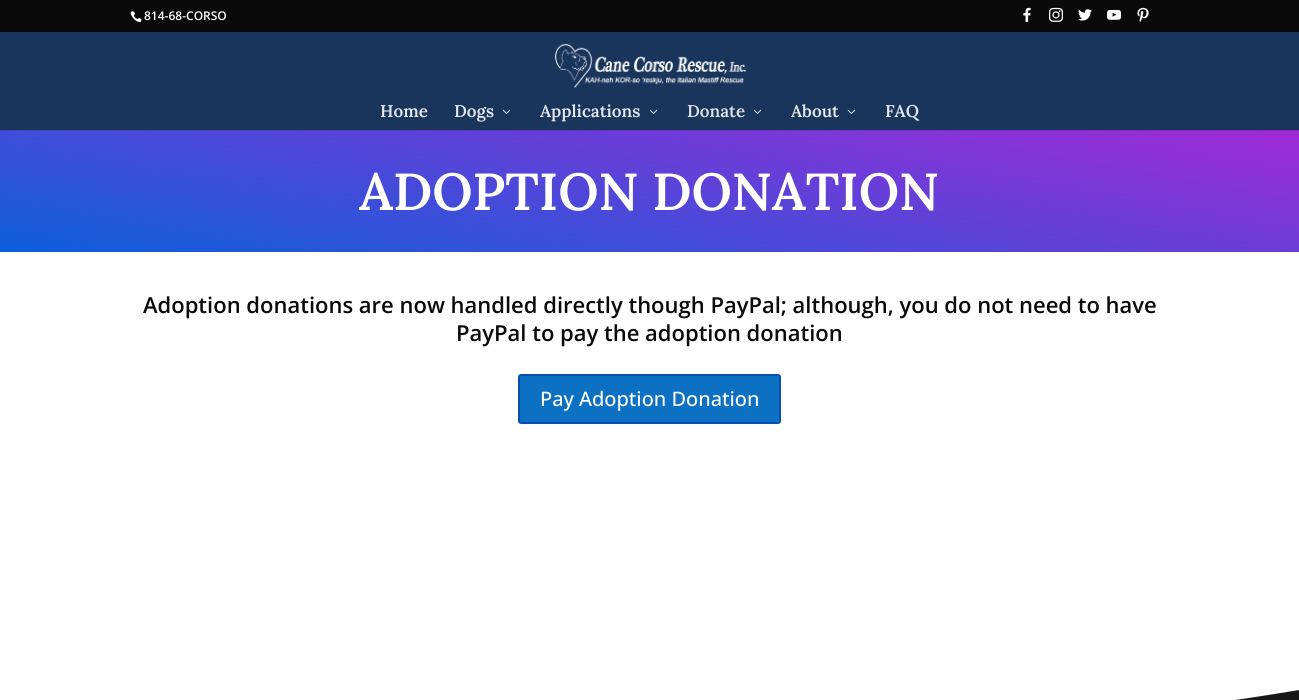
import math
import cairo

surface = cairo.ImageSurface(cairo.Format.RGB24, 1299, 700)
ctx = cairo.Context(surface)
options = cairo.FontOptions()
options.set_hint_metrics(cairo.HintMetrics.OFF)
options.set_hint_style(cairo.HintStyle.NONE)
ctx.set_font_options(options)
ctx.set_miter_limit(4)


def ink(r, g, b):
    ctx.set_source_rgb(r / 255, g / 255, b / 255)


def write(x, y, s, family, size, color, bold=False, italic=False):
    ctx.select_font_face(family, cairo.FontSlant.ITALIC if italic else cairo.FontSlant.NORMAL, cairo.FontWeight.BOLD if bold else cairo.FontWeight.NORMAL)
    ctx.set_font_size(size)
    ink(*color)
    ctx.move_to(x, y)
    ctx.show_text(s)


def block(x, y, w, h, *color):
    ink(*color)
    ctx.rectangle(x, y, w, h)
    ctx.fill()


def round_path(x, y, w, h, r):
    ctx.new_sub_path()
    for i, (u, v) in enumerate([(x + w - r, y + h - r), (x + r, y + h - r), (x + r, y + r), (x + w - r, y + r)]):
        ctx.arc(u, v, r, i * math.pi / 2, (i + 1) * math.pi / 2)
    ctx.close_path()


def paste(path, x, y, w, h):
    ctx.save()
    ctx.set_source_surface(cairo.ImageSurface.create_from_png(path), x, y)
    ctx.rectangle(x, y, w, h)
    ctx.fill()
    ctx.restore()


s1 = dict(family="Open Sans SemiBold", size=12, color=(255, 255, 255))
s2 = dict(family="Lora SemiBold", size=17, color=(228, 231, 235))
s3 = dict(family="Lora SemiBold", size=17, color=(224, 224, 224))
s4 = dict(family="Lora SemiBold", size=52, color=(255, 255, 255))
s5 = dict(family="Open Sans SemiBold", size=22, color=(10, 10, 10))
s6 = dict(family="Open Sans Medium", size=20, color=(255, 255, 255))

ink(10, 10, 10)
ctx.paint()
paste("pic1.png", 130, 11, 12, 12)
write(144, 20, "814-68-CORSO", **s1)
paste("pic2.png", 1023, 7, 8, 15)
paste("pic3.png", 1049, 7, 14, 15)
paste("pic4.png", 1078, 9, 14, 12)
paste("pic5.png", 1107, 9, 14, 11)
paste("pic6.png", 1137, 7, 12, 15)
block(0, 32, 1299, 98, 26, 53, 91)
paste("pic7.png", 555, 44, 192, 44)
write(380, 117, "Home", **s2)
write(454, 117, "Dogs", **s2)
paste("pic8.png", 502, 109, 9, 5)
write(540, 117, "Applications", **s2)
paste("pic8.png", 649, 109, 9, 5)
write(687, 117, "Donate", **s3)
paste("pic9.png", 753, 109, 9, 5)
write(791, 117, "About", **s2)
paste("pic8.png", 847, 109, 9, 5)
write(885, 117, "FAQ", **s2)
gradient = cairo.LinearGradient(680, 21, 619, 361)
gradient.add_color_stop_rgba(0, 0.624, 0.165, 0.839, 1)
gradient.add_color_stop_rgba(1, 0.051, 0.373, 0.859, 1)
ctx.set_source(gradient)
ctx.rectangle(0, 131, 1299, 121)
ctx.fill()
gradient = cairo.LinearGradient(680, 21, 619, 361)
gradient.add_color_stop_rgba(0, 0.561, 0.149, 0.757, 1)
gradient.add_color_stop_rgba(1, 0.047, 0.337, 0.773, 1)
ctx.set_source(gradient)
ctx.rectangle(0, 130, 1299, 1)
ctx.fill()
write(359, 210, "ADOPTION DONATION", **s4)
block(0, 252, 1299, 448, 255, 255, 255)
write(143, 313, "Adoption donations are now handled directly though PayPal; although, you do not need to have", **s5)
write(456, 341, "PayPal to pay the adoption donation", **s5)
ink(12, 113, 195)
round_path(519, 375, 261, 48, 2)
ctx.fill_preserve()
ink(10, 78, 181)
ctx.stroke()
write(540, 406, "Pay Adoption Donation", **s6)
ink(23, 23, 23)
ctx.new_path()
ctx.move_to(1299, 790)
ctx.line_to(0, 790)
ctx.curve_to(717, 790, 1299, 690, 1299, 690)
ctx.close_path()
ctx.fill()
surface.write_to_png("screenshot.png")
